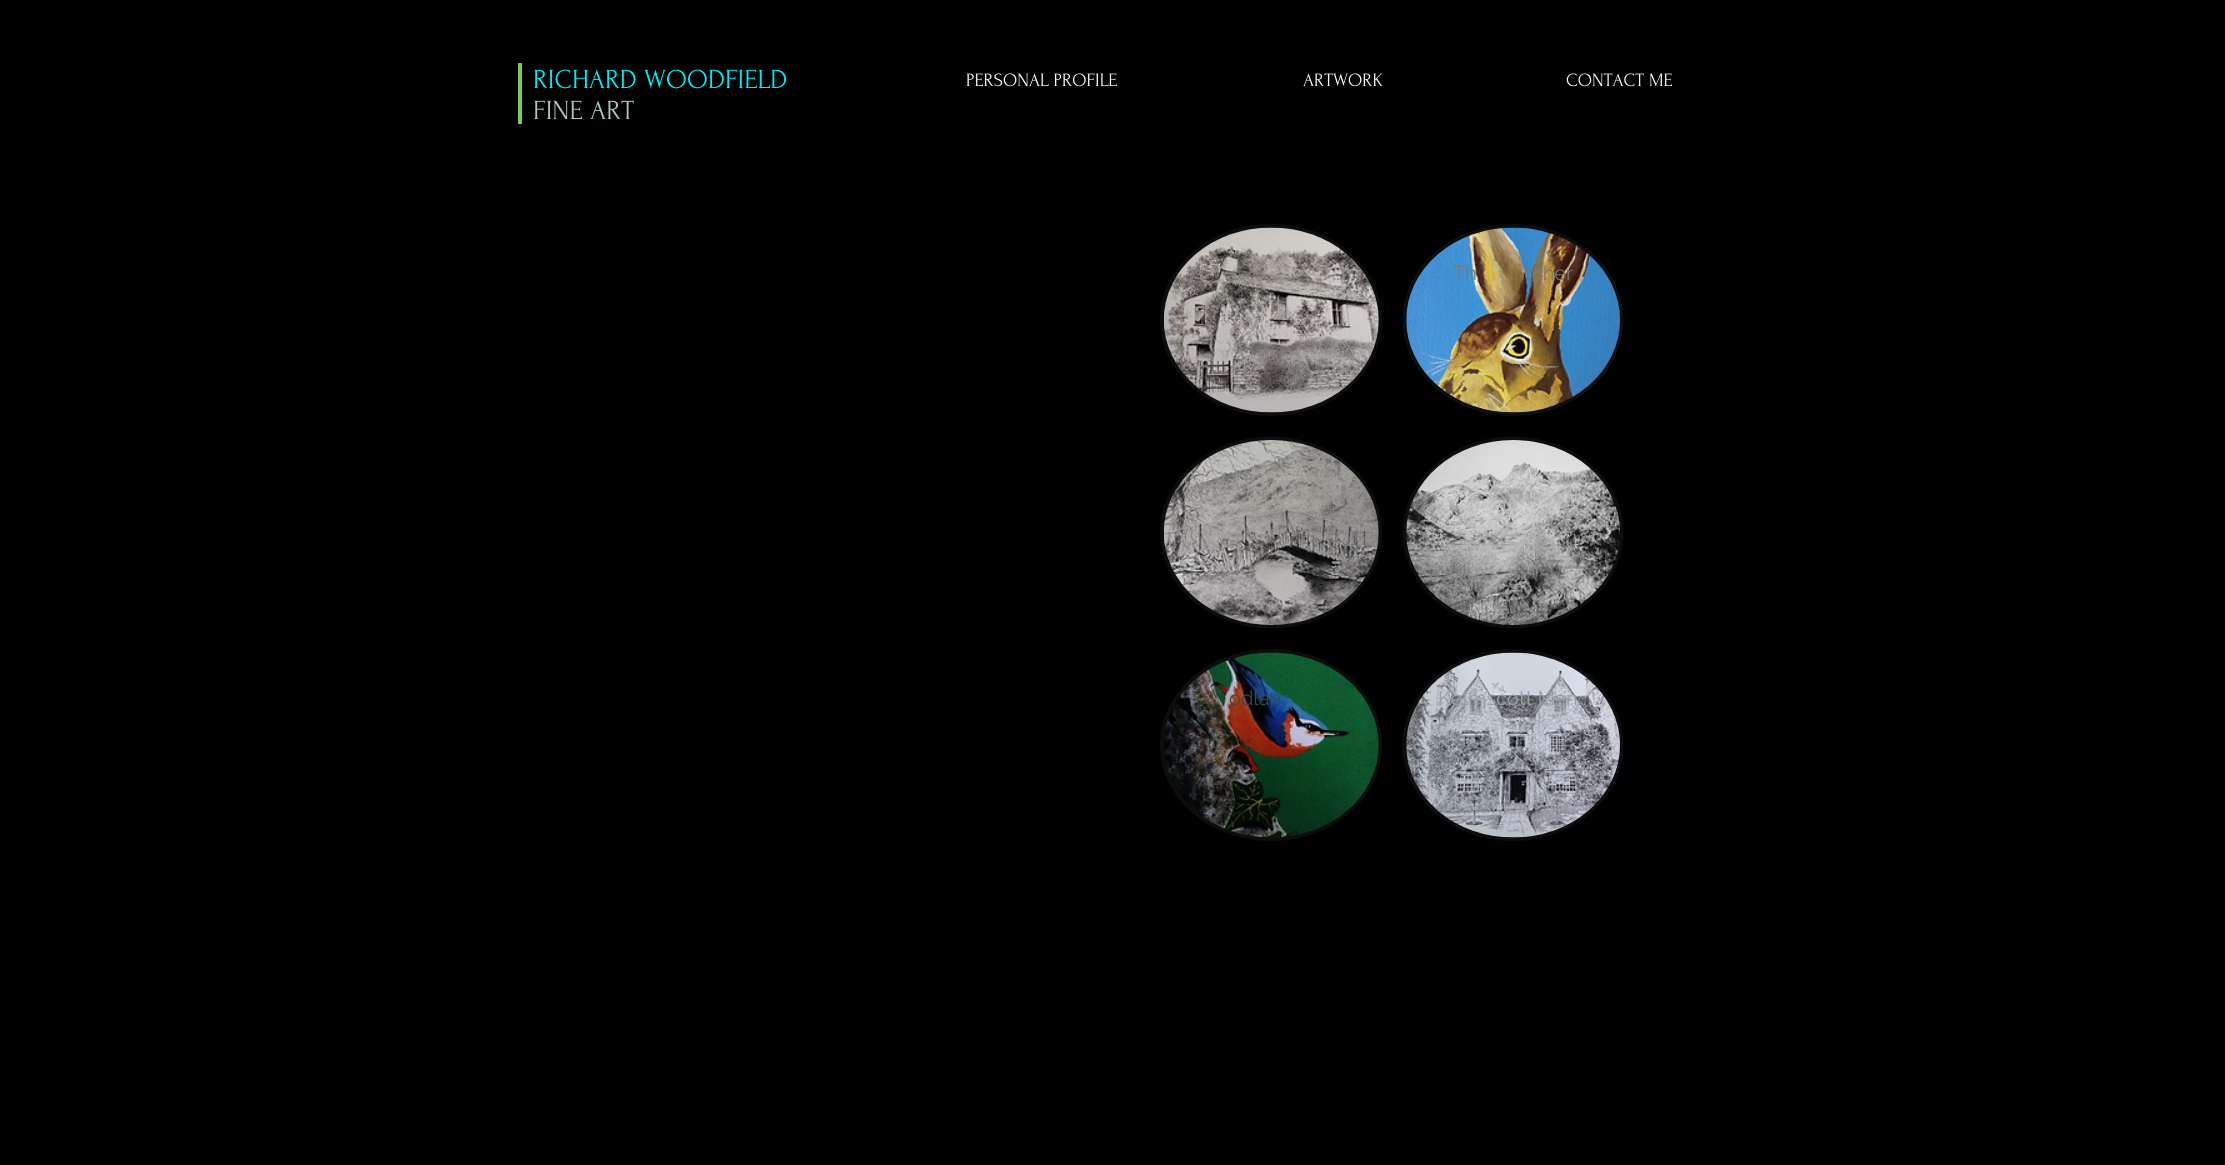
import math
import cairo

surface = cairo.ImageSurface(cairo.Format.RGB24, 2225, 1165)
ctx = cairo.Context(surface)
options = cairo.FontOptions()
options.set_hint_metrics(cairo.HintMetrics.OFF)
options.set_hint_style(cairo.HintStyle.NONE)
ctx.set_font_options(options)
ctx.set_miter_limit(4)


def ink(r, g, b):
    ctx.set_source_rgb(r / 255, g / 255, b / 255)


def write(x, y, s, family, size, color, bold=False, italic=False):
    ctx.select_font_face(family, cairo.FontSlant.ITALIC if italic else cairo.FontSlant.NORMAL, cairo.FontWeight.BOLD if bold else cairo.FontWeight.NORMAL)
    ctx.set_font_size(size)
    ink(*color)
    ctx.move_to(x, y)
    ctx.show_text(s)


def block(x, y, w, h, *color):
    ink(*color)
    ctx.rectangle(x, y, w, h)
    ctx.fill()


def paste(path, x, y, w, h):
    ctx.save()
    ctx.set_source_surface(cairo.ImageSurface.create_from_png(path), x, y)
    ctx.rectangle(x, y, w, h)
    ctx.fill()
    ctx.restore()


s1 = dict(family="Forum", size=27.5, color=(0, 235, 247))
s2 = dict(family="Forum", size=27.5, color=(175, 198, 199))
s3 = dict(family="Forum", size=18.75, color=(255, 255, 255))
s4 = dict(family="Raleway", size=20, color=(140, 135, 131))
s5 = dict(family="Raleway", size=20, color=(122, 120, 105))
s6 = dict(family="Raleway", size=20, color=(188, 188, 188))
s7 = dict(family="Raleway", size=20, color=(54, 75, 70))
s8 = dict(family="Raleway", size=20, color=(153, 158, 165))

ink(0, 0, 0)
ctx.paint()
block(518, 63, 4, 61, 122, 201, 89)
write(533, 88, "RICHARD WOODFIELD", **s1)
write(533, 119, "FINE ART", **s2)
write(966, 86, "PERSONAL PROFILE", **s3)
write(1303, 86, "ARTWORK", **s3)
write(1566, 86, "CONTACT ME", **s3)
ink(13, 13, 13)
ctx.new_path()
ctx.move_to(1271, 224)
ctx.curve_to(1332.5, 224, 1382, 267, 1382, 320)
ctx.curve_to(1382, 373, 1332.5, 416, 1271, 416)
ctx.curve_to(1209.5, 416, 1160, 373, 1160, 320)
ctx.curve_to(1160, 267, 1209.5, 224, 1271, 224)
ctx.close_path()
ctx.fill()
paste("pic1.png", 1163, 227, 216, 186)
write(1333, 280, "…", **s4)
ink(13, 13, 13)
ctx.new_path()
ctx.move_to(1513, 224)
ctx.curve_to(1574, 224, 1623.5, 267, 1623.5, 320)
ctx.curve_to(1623.5, 373, 1574, 416, 1513, 416)
ctx.curve_to(1452, 416, 1402.5, 373, 1402.5, 320)
ctx.curve_to(1402.5, 267, 1452, 224, 1513, 224)
ctx.close_path()
ctx.fill()
paste("pic2.png", 1406, 227, 214, 186)
write(1453, 280, "Th", **s5)
write(1525, 280, "tcher", **s5)
ink(13, 13, 13)
ctx.new_path()
ctx.move_to(1271, 436.5)
ctx.curve_to(1332.5, 436.5, 1382, 479.5, 1382, 532.5)
ctx.curve_to(1382, 585.5, 1332.5, 628.5, 1271, 628.5)
ctx.curve_to(1209.5, 628.5, 1160, 585.5, 1160, 532.5)
ctx.curve_to(1160, 479.5, 1209.5, 436.5, 1271, 436.5)
ctx.close_path()
ctx.fill()
paste("pic3.png", 1163, 440, 216, 185)
ctx.new_path()
ctx.move_to(1513, 436.5)
ctx.curve_to(1574, 436.5, 1623.5, 479.5, 1623.5, 532.5)
ctx.curve_to(1623.5, 585.5, 1574, 628.5, 1513, 628.5)
ctx.curve_to(1452, 628.5, 1402.5, 585.5, 1402.5, 532.5)
ctx.curve_to(1402.5, 479.5, 1452, 436.5, 1513, 436.5)
ctx.close_path()
ctx.fill()
paste("pic4.png", 1406, 440, 214, 185)
write(1569, 492, "…", **s6)
ink(13, 13, 13)
ctx.new_path()
ctx.move_to(1271, 649)
ctx.curve_to(1332.5, 649, 1382, 692, 1382, 745)
ctx.curve_to(1382, 798, 1332.5, 841, 1271, 841)
ctx.curve_to(1209.5, 841, 1160, 798, 1160, 745)
ctx.curve_to(1160, 692, 1209.5, 649, 1271, 649)
ctx.close_path()
ctx.fill()
paste("pic5.png", 1164, 652, 215, 186)
write(1229, 705, "odlan", **s7)
ink(13, 13, 13)
ctx.new_path()
ctx.move_to(1513, 649)
ctx.curve_to(1574, 649, 1623.5, 692, 1623.5, 745)
ctx.curve_to(1623.5, 798, 1574, 841, 1513, 841)
ctx.curve_to(1452, 841, 1402.5, 798, 1402.5, 745)
ctx.curve_to(1402.5, 692, 1452, 649, 1513, 649)
ctx.close_path()
ctx.fill()
paste("pic6.png", 1406, 652, 214, 186)
write(1438, 705, "Kelmscott Man…", **s8)
surface.write_to_png("screenshot.png")
